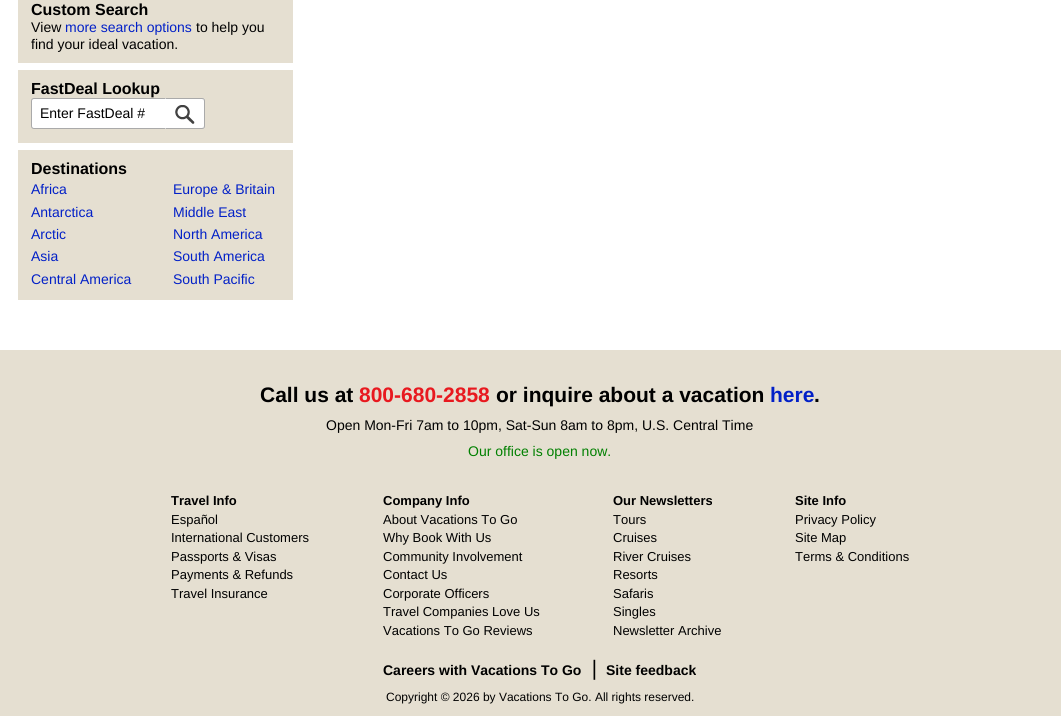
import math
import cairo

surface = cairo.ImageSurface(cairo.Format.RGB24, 1061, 716)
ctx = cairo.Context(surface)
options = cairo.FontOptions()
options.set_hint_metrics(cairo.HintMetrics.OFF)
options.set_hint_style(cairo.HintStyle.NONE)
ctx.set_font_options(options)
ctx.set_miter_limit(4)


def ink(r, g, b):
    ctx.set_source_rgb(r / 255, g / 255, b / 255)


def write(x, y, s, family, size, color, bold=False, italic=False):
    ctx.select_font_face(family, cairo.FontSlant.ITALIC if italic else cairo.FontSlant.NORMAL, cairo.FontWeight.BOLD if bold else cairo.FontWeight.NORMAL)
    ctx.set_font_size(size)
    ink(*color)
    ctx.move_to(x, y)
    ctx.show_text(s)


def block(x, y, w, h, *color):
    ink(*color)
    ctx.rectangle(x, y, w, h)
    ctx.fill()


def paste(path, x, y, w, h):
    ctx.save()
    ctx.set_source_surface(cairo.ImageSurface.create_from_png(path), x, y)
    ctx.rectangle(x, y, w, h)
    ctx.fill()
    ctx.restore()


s1 = dict(family="Liberation Sans", size=16, color=(0, 0, 0), bold=True)
s2 = dict(family="Liberation Sans", size=14, color=(0, 0, 0))
s3 = dict(family="Liberation Sans", size=14, color=(2, 32, 199))
s4 = dict(family="Liberation Sans", size=21, color=(0, 0, 0), bold=True)
s5 = dict(family="Liberation Sans", size=21, color=(232, 25, 31), bold=True)
s6 = dict(family="Liberation Sans", size=21, color=(2, 32, 199), bold=True)
s7 = dict(family="Liberation Sans", size=14, color=(0, 128, 0))
s8 = dict(family="Liberation Sans", size=13, color=(0, 0, 0), bold=True)
s9 = dict(family="Liberation Sans", size=13, color=(0, 0, 0))
s10 = dict(family="Liberation Sans", size=14, color=(0, 0, 0), bold=True)
s11 = dict(family="DejaVu Sans", size=20, color=(0, 0, 0))
s12 = dict(family="Liberation Sans", size=12, color=(0, 0, 0))

ink(255, 255, 255)
ctx.paint()
block(18, 0, 275, 63, 229, 223, 209)
write(31, 15, "Custom Search", **s1)
write(31, 32, "View", **s2)
write(65, 32, "more search options", **s3)
write(196, 32, "to help you", **s2)
write(31, 49, "find your ideal vacation.", **s2)
block(18, 70, 275, 73, 229, 223, 209)
write(31, 94, "FastDeal Lookup", **s1)
ink(255, 255, 255)
ctx.new_path()
ctx.move_to(34, 98.5)
ctx.line_to(165.5, 98.5)
ctx.line_to(165.5, 128.5)
ctx.line_to(34, 128.5)
ctx.curve_to(32.5, 128.5, 31.5, 127.5, 31.5, 126)
ctx.line_to(31.5, 101)
ctx.curve_to(31.5, 99.5, 32.5, 98.5, 34, 98.5)
ctx.close_path()
ctx.fill_preserve()
ink(170, 170, 170)
ctx.set_line_width(1)
ctx.stroke()
write(40, 118, "Enter FastDeal #", **s2)
ink(255, 255, 255)
ctx.new_path()
ctx.move_to(165, 98)
ctx.line_to(202, 98)
ctx.curve_to(203.5, 98, 205, 99.5, 205, 101)
ctx.line_to(205, 126)
ctx.curve_to(205, 127.5, 203.5, 129, 202, 129)
ctx.line_to(165, 129)
ctx.close_path()
ctx.fill()
ink(170, 170, 170)
ctx.new_path()
ctx.move_to(165, 98)
ctx.line_to(166, 99)
ctx.line_to(202, 99)
ctx.line_to(203.5, 99.5)
ctx.line_to(204, 99)
ctx.curve_to(204, 98, 203, 98, 202, 98)
ctx.close_path()
ctx.fill()
ctx.new_path()
ctx.move_to(205, 126)
ctx.line_to(205, 101)
ctx.curve_to(205, 100, 205, 99, 204, 99)
ctx.line_to(203.5, 99.5)
ctx.line_to(204, 101)
ctx.line_to(204, 126)
ctx.line_to(203.5, 127.5)
ctx.line_to(204, 128)
ctx.curve_to(205, 128, 205, 127, 205, 126)
ctx.close_path()
ctx.fill()
ctx.new_path()
ctx.move_to(202, 129)
ctx.curve_to(203, 129, 204, 129, 204, 128)
ctx.line_to(203.5, 127.5)
ctx.line_to(202, 128)
ctx.line_to(166, 128)
ctx.line_to(165, 129)
ctx.close_path()
ctx.fill()
paste("pic1.png", 175, 105, 20, 19)
block(18, 150, 275, 150, 229, 223, 209)
write(31, 174, "Destinations", **s1)
write(31, 194, "Africa", **s3)
write(31, 217, "Antarctica", **s3)
write(31, 239, "Arctic", **s3)
write(31, 261, "Asia", **s3)
write(31, 284, "Central America", **s3)
write(173, 194, "Europe & Britain", **s3)
write(173, 217, "Middle East", **s3)
write(173, 239, "North America", **s3)
write(173, 261, "South America", **s3)
write(173, 284, "South Pacific", **s3)
block(0, 350, 1061, 366, 229, 223, 209)
write(260, 402, "Call us at", **s4)
write(359, 402, "800-680-2858", **s5)
write(496, 402, "or inquire about a vacation", **s4)
write(770, 402, "here", **s6)
write(814, 402, ".", **s4)
write(326, 430, "Open Mon-Fri 7am to 10pm, Sat-Sun 8am to 8pm, U.S. Central Time", **s2)
write(468, 456, "Our office is open now.", **s7)
write(171, 505, "Travel Info", **s8)
write(171, 524, "Español", **s9)
write(171, 542, "International Customers", **s9)
write(171, 561, "Passports & Visas", **s9)
write(171, 579, "Payments & Refunds", **s9)
write(171, 598, "Travel Insurance", **s9)
write(383, 505, "Company Info", **s8)
write(383, 524, "About Vacations To Go", **s9)
write(383, 542, "Why Book With Us", **s9)
write(383, 561, "Community Involvement", **s9)
write(383, 579, "Contact Us", **s9)
write(383, 598, "Corporate Officers", **s9)
write(383, 616, "Travel Companies Love Us", **s9)
write(383, 635, "Vacations To Go Reviews", **s9)
write(613, 505, "Our Newsletters", **s8)
write(613, 524, "Tours", **s9)
write(613, 542, "Cruises", **s9)
write(613, 561, "River Cruises", **s9)
write(613, 579, "Resorts", **s9)
write(613, 598, "Safaris", **s9)
write(613, 616, "Singles", **s9)
write(613, 635, "Newsletter Archive", **s9)
write(795, 505, "Site Info", **s8)
write(795, 524, "Privacy Policy", **s9)
write(795, 542, "Site Map", **s9)
write(795, 561, "Terms & Conditions", **s9)
write(383, 675, "Careers with Vacations To Go", **s10)
write(586, 675, "❘", **s11)
write(606, 675, "Site feedback", **s10)
write(386, 701, "Copyright © 2026 by Vacations To Go. All rights reserved.", **s12)
surface.write_to_png("screenshot.png")
